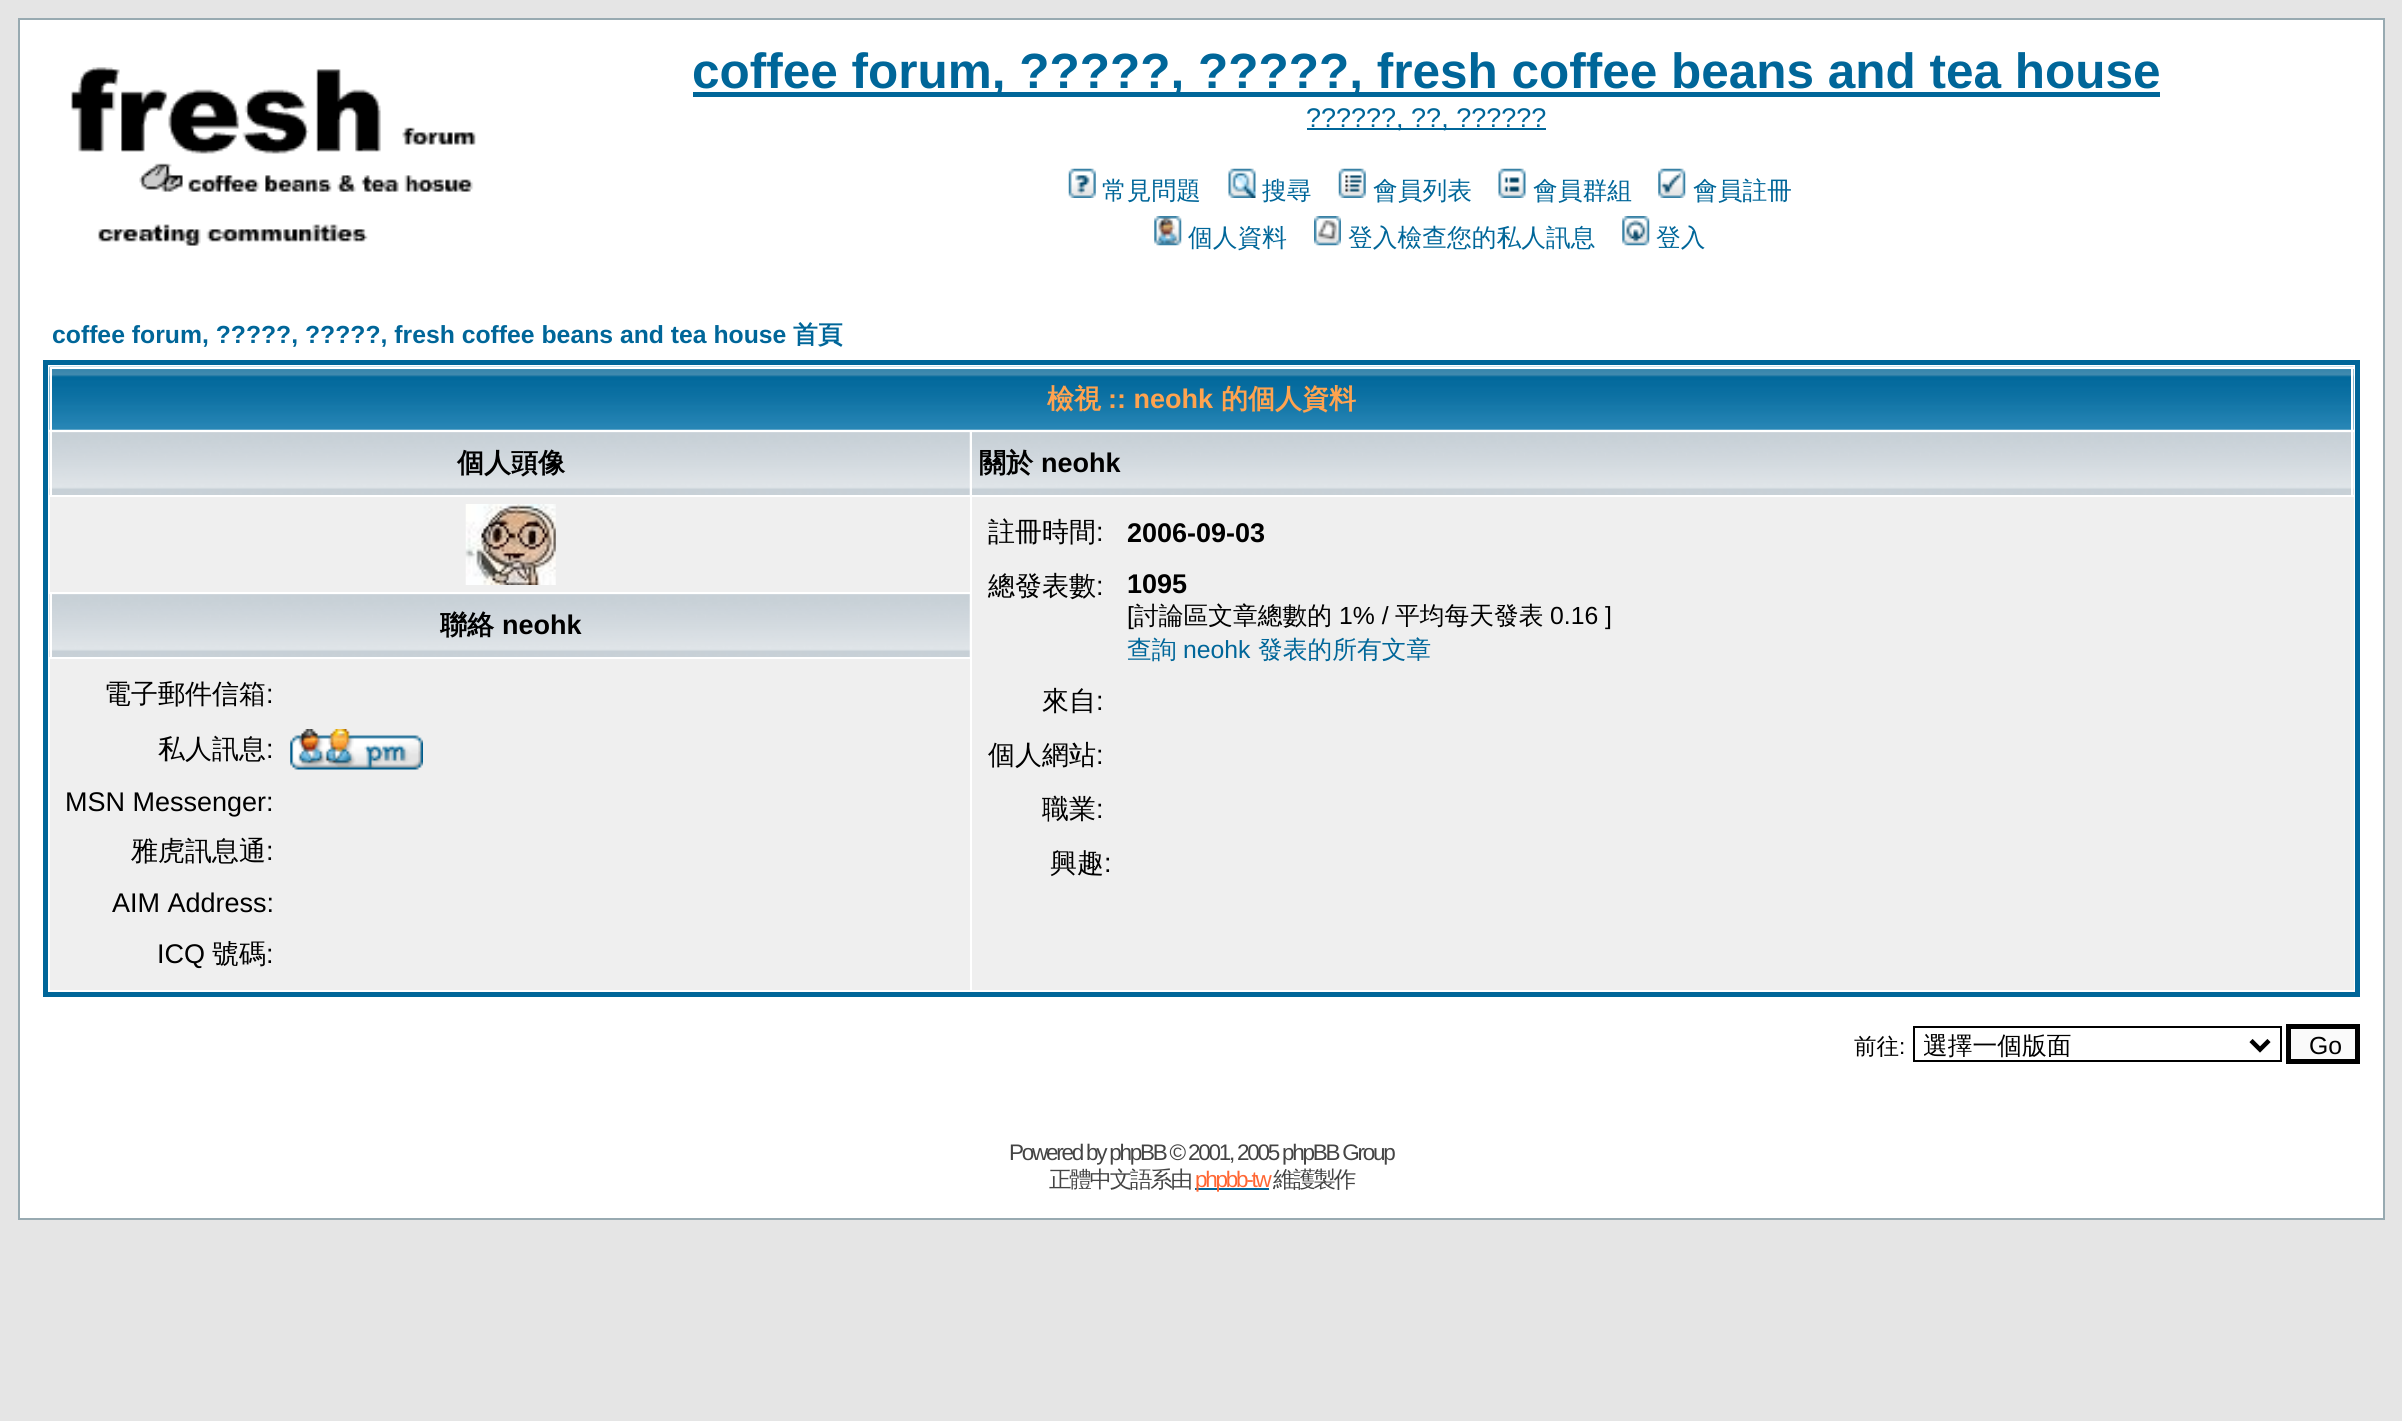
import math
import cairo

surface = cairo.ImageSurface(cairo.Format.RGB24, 2402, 1421)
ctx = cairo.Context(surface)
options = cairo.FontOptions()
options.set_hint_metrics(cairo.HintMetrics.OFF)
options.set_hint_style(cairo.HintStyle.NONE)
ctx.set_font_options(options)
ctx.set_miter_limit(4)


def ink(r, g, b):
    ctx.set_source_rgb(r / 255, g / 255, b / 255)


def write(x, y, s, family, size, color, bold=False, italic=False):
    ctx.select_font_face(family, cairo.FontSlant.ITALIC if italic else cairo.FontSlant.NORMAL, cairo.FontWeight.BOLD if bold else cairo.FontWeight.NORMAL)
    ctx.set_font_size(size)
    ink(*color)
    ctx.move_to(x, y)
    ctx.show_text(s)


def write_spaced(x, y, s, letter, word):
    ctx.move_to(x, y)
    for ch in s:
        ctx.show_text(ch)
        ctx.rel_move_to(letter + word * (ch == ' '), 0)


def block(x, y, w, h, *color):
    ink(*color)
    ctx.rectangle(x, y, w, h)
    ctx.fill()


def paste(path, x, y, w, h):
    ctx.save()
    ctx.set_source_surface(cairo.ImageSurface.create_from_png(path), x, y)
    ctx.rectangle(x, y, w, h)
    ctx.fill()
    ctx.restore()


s1 = dict(family="Liberation Sans", size=49.5, color=(0, 102, 153), bold=True)
s2 = dict(family="Liberation Sans", size=27, color=(0, 102, 153))
s3 = dict(family="WenQuanYi Zen Hei Medium", size=24.75, color=(0, 102, 153))
s4 = dict(family="Liberation Sans", size=24.75, color=(0, 102, 153), bold=True)
s5 = dict(family="WenQuanYi Zen Hei", size=24.75, color=(0, 102, 153), bold=True)
s6 = dict(family="WenQuanYi Zen Hei", size=27, color=(255, 163, 79), bold=True)
s7 = dict(family="Liberation Sans", size=27, color=(255, 163, 79), bold=True)
s8 = dict(family="WenQuanYi Zen Hei", size=27, color=(0, 0, 0), bold=True)
s9 = dict(family="Liberation Sans", size=27, color=(0, 0, 0), bold=True)
s10 = dict(family="WenQuanYi Zen Hei Medium", size=27, color=(0, 0, 0))
s11 = dict(family="Liberation Sans", size=27, color=(0, 0, 0))
s12 = dict(family="Liberation Sans", size=24.75, color=(0, 0, 0))
s13 = dict(family="WenQuanYi Zen Hei Medium", size=24.75, color=(0, 0, 0))
s14 = dict(family="Liberation Sans", size=24.75, color=(0, 102, 153))
s15 = dict(family="WenQuanYi Zen Hei Medium", size=22.5, color=(0, 0, 0))
s16 = dict(family="Liberation Sans", size=22.5, color=(0, 0, 0))

ink(229, 229, 229)
ctx.paint()
ink(255, 255, 255)
ctx.rectangle(19, 19, 2365, 1200)
ctx.fill_preserve()
ink(152, 170, 177)
ctx.stroke()
paste("pic1.png", 71, 67, 405, 179)
block(693, 92, 1467, 5, 0, 102, 153)
write(692, 88, "coffee forum, ?????, ?????, fresh coffee beans and tea house", **s1)
block(1307, 128, 239, 2, 0, 102, 153)
write(1306, 127, "??????, ??, ??????", **s2)
paste("pic2.png", 1068, 168, 28, 30)
write(1102, 199, "常見問題", **s3)
paste("pic3.png", 1228, 168, 28, 30)
write(1262, 199, "搜尋", **s3)
paste("pic4.png", 1338, 168, 28, 30)
write(1373, 199, "會員列表", **s3)
paste("pic5.png", 1498, 168, 28, 30)
write(1533, 199, "會員群組", **s3)
paste("pic6.png", 1658, 168, 28, 30)
write(1693, 199, "會員註冊", **s3)
paste("pic7.png", 1154, 216, 28, 30)
write(1188, 246, "個人資料", **s3)
paste("pic8.png", 1314, 216, 27, 30)
write(1348, 246, "登入檢查您的私人訊息", **s3)
paste("pic9.png", 1622, 216, 28, 30)
write(1656, 246, "登入", **s3)
write(52, 343, "coffee forum, ?????, ?????, fresh coffee beans and tea house", **s4)
write(793, 343, "首頁", **s5)
ctx.rectangle(45.5, 362.5, 2312, 632)
ctx.set_line_width(5)
ctx.stroke()
paste("pic10.png", 49, 366, 2305, 64)
block(50, 367, 2304, 2, 255, 255, 255)
block(2351, 367, 2, 63, 255, 255, 255)
block(50, 367, 2, 63, 255, 255, 255)
write(1047, 408, "檢視", **s6)
write(1108, 408, ":: neohk", **s7)
write(1221, 408, "的個人資料", **s6)
paste("pic11.png", 49, 432, 921, 63)
block(50, 432, 2, 63, 255, 255, 255)
write(457, 472, "個人頭像", **s8)
paste("pic12.png", 972, 432, 1382, 63)
block(2351, 432, 2, 63, 255, 255, 255)
write(979, 472, "關於", **s8)
write(1041, 472, "neohk", **s9)
paste("pic11.png", 49, 594, 921, 63)
block(50, 594, 2, 63, 255, 255, 255)
write(440, 634, "聯絡", **s8)
write(502, 634, "neohk", **s9)
block(50, 497, 920, 95, 239, 239, 239)
paste("pic13.png", 465, 504, 91, 81)
block(972, 497, 1382, 493, 239, 239, 239)
write(988, 541, "註冊時間", **s10)
write(1096, 541, ":", **s11)
write(1127, 542, "2006-09-03", **s9)
write(988, 595, "總發表數", **s10)
write(1096, 595, ":", **s11)
write(1127, 593, "1095", **s9)
write(1127, 624, "[", **s12)
write(1134, 624, "討論區文章總數的", **s13)
write(1339, 624, "1% /", **s12)
write(1395, 624, "平均每天發表", **s13)
write(1550, 624, "0.16 ]", **s12)
write(1127, 658, "查詢", **s3)
write(1183, 658, "neohk", **s14)
write(1258, 658, "發表的所有文章", **s3)
write(1042, 710, "來自", **s10)
write(1096, 710, ":", **s11)
write(988, 764, "個人網站", **s10)
write(1096, 764, ":", **s11)
write(1042, 818, "職業", **s10)
write(1096, 818, ":", **s11)
write(1050, 872, "興趣", **s10)
write(1104, 872, ":", **s11)
block(50, 659, 920, 331, 239, 239, 239)
write(104, 703, "電子郵件信箱", **s10)
write(266, 703, ":", **s11)
write(158, 758, "私人訊息", **s10)
write(266, 758, ":", **s11)
paste("pic14.png", 290, 729, 133, 41)
write(65, 811, "MSN Messenger:", **s11)
write(131, 860, "雅虎訊息通", **s10)
write(266, 860, ":", **s11)
write(112, 912, "AIM Address:", **s11)
write(157, 963, "ICQ", **s11)
write(212, 963, "號碼", **s10)
write(266, 963, ":", **s11)
write(1854, 1054, "前往", **s15)
write(1899, 1054, ":", **s16)
ctx.rectangle(1914, 1027, 367, 34)
ctx.set_line_width(2)
ctx.stroke()
ctx.new_path()
ctx.move_to(2251, 1040.5)
ctx.line_to(2260, 1049.5)
ctx.line_to(2269, 1040.5)
ctx.set_line_width(4.5)
ctx.stroke()
ctx.save()
ctx.rectangle(1924, 1028, 319, 32)
ctx.clip()
write(1923, 1054, "選擇一個版面", **s13)
ctx.restore()
ink(250, 250, 250)
ctx.rectangle(2288.5, 1026.5, 69, 35)
ctx.fill_preserve()
ink(0, 0, 0)
ctx.set_line_width(5)
ctx.stroke()
write(2309, 1054, "Go", **s12)
ctx.set_font_size(22.5)
ink(68, 68, 68)
write_spaced(1009, 1160, "Powered by phpBB © 2001, 2005 phpBB Group", -2.25, 0)
ctx.select_font_face("WenQuanYi Zen Hei Medium")
write_spaced(1049, 1187, "正體中文語系由", -2.25, 0)
block(1195, 1188, 74, 2, 0, 102, 153)
ctx.select_font_face("Liberation Sans")
ink(255, 102, 51)
write_spaced(1195, 1187, "phpbb-tw", -2.25, 0)
ctx.select_font_face("WenQuanYi Zen Hei Medium")
ink(68, 68, 68)
write_spaced(1273, 1187, "維護製作", -2.25, 0)
surface.write_to_png("screenshot.png")
